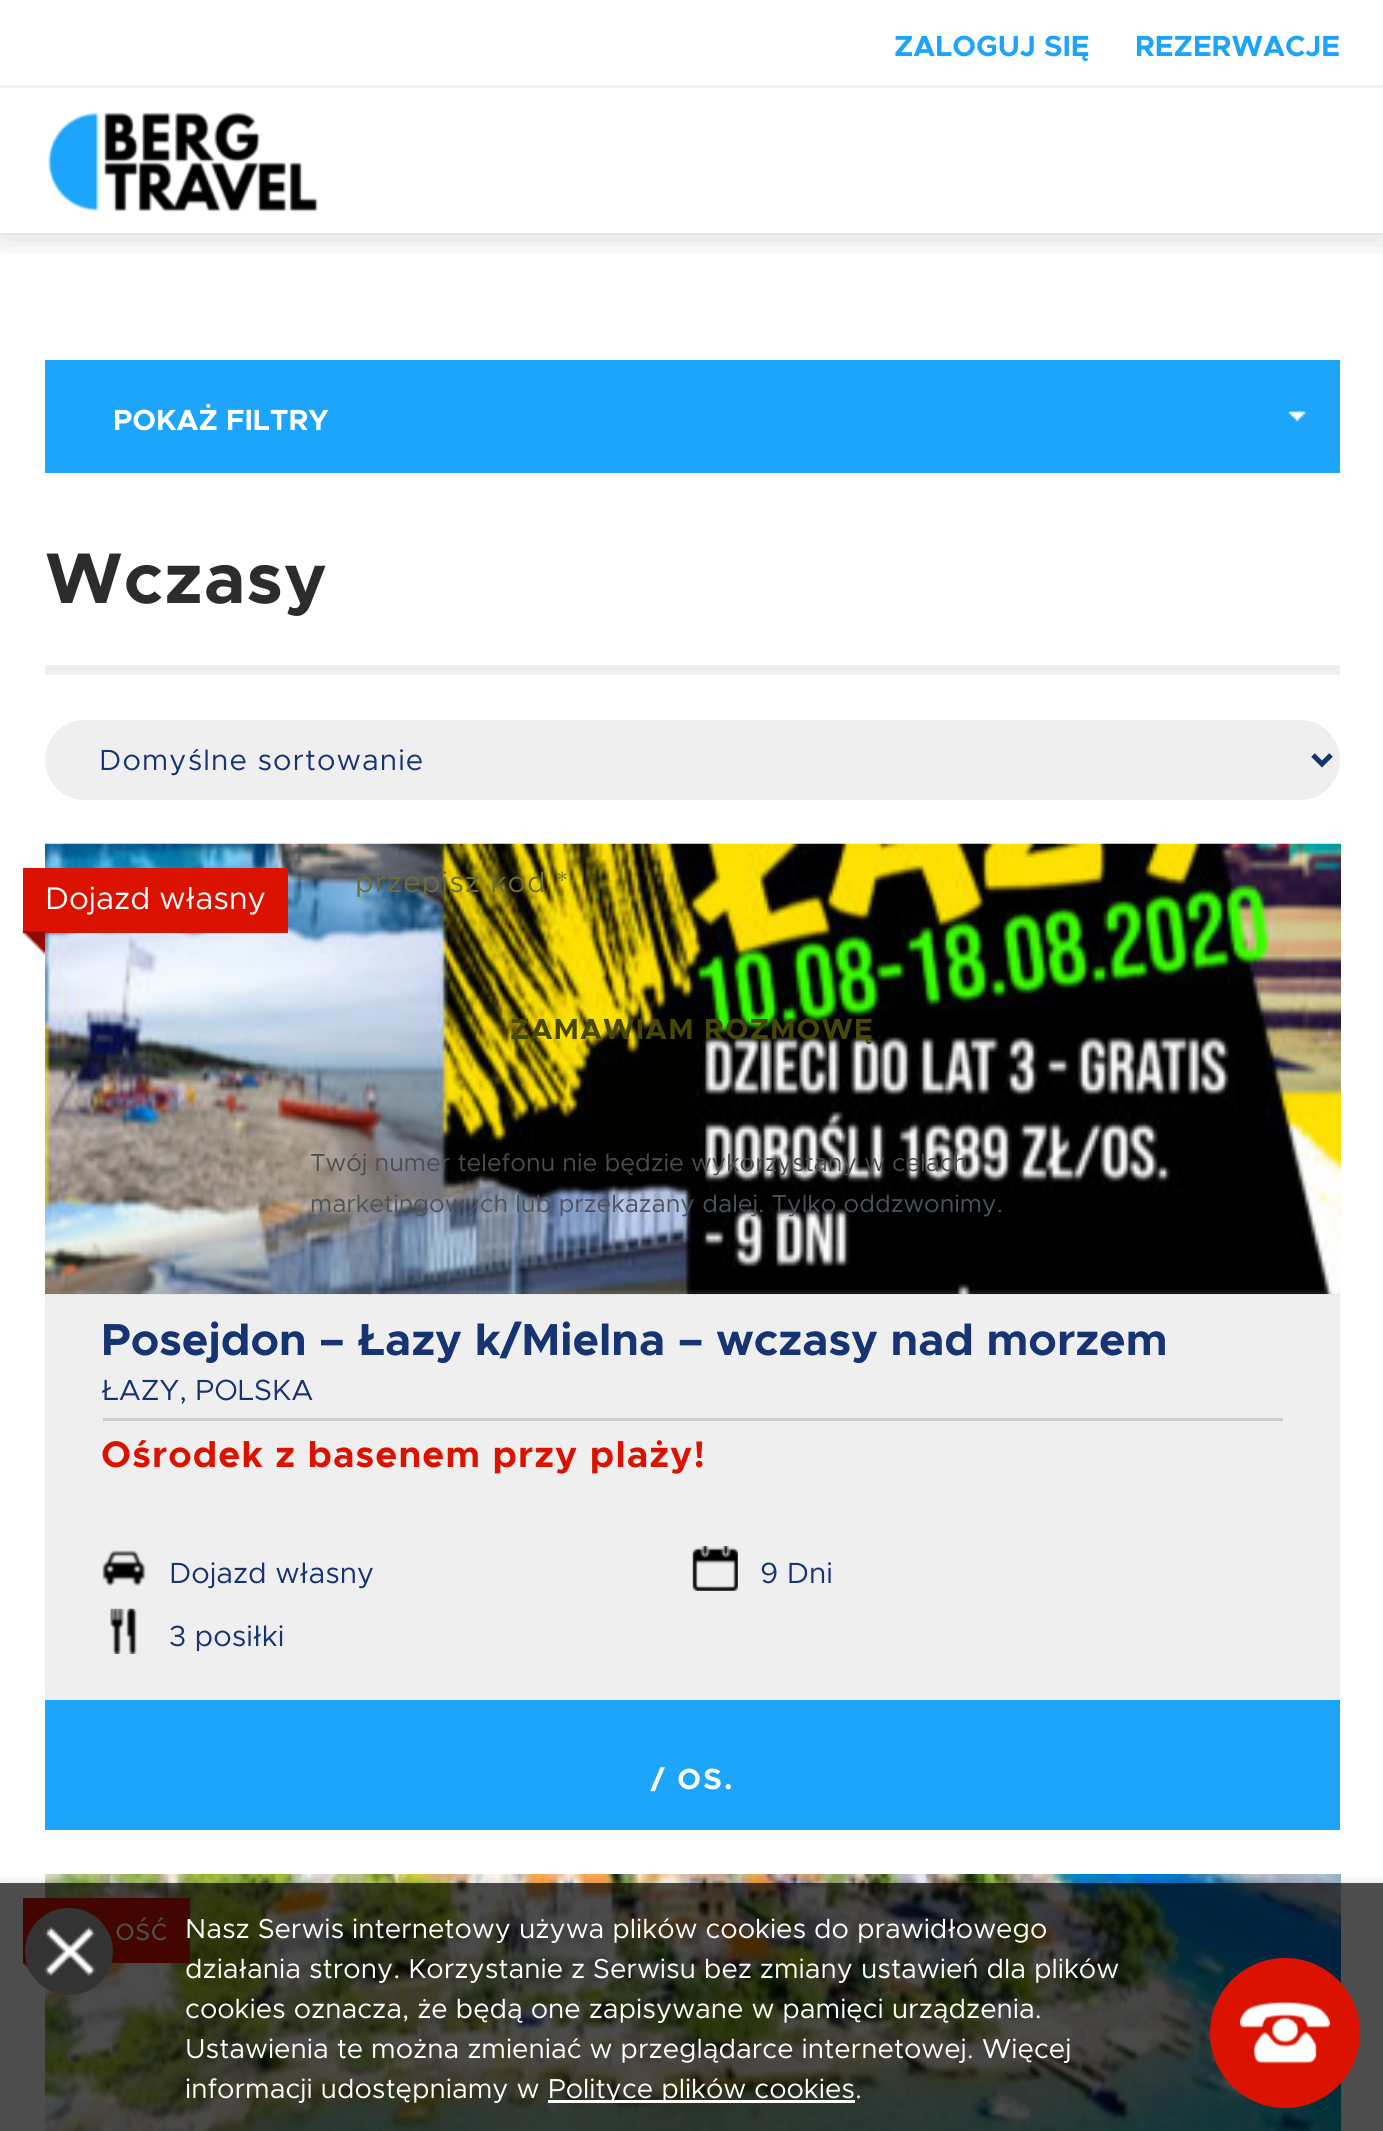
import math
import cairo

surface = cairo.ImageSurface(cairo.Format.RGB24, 1383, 2131)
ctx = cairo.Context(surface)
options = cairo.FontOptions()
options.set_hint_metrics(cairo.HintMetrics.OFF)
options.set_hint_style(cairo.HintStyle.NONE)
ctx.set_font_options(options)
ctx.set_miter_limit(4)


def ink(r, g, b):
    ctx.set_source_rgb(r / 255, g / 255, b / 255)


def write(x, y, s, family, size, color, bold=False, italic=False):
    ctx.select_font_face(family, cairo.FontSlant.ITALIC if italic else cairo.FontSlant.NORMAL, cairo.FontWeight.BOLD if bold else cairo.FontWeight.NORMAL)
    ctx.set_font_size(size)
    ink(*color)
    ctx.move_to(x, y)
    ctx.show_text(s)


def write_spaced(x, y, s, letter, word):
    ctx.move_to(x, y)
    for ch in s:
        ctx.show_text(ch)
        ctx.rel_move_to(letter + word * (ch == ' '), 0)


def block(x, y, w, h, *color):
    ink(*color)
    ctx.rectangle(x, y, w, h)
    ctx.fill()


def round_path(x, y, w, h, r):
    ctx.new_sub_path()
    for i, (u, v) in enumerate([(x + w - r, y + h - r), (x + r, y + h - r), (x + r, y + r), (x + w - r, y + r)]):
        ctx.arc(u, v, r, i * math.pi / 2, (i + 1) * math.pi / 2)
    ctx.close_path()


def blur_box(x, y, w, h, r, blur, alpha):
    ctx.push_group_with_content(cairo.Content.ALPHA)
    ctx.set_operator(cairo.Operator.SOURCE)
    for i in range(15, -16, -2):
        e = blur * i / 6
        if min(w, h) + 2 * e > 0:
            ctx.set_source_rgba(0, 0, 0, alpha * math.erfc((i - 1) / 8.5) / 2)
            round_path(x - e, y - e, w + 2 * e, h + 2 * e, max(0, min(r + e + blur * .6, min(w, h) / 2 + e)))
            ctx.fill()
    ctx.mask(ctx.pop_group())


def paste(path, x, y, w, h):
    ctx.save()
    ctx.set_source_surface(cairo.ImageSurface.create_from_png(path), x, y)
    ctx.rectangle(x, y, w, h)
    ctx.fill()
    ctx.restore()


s1 = dict(family="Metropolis", size=29.25, color=(29, 164, 250), bold=True)
s2 = dict(family="Metropolis", size=29.25, color=(255, 255, 255), bold=True)
s3 = dict(family="Metropolis", size=31.5, color=(255, 255, 255))
s4 = dict(family="Metropolis", size=45, color=(22, 51, 114), bold=True)
s5 = dict(family="Metropolis", size=29.25, color=(22, 51, 114))
s6 = dict(family="Metropolis", size=31.5, color=(77, 77, 77))
s7 = dict(family="Metropolis", size=24.75, color=(77, 77, 77))
s8 = dict(family="Metropolis", size=24.75, color=(77, 83, 93))
s9 = dict(family="Metropolis", size=27.5, color=(255, 255, 255))

ink(255, 255, 255)
ctx.paint()
ctx.save()
ctx.rectangle(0, 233, 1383, 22)
ctx.clip()
ink(0, 0, 0)
blur_box(0, 0, 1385, 233, 0, 17, 0.2)
ctx.restore()
block(0, 85, 1383, 3, 239, 239, 239)
write(894, 56, "ZALOGUJ SIĘ", **s1)
write(1135, 56, "REZERWACJE", **s1)
paste("pic1.png", 48, 112, 270, 100)
block(0, 1883, 1383, 248, 77, 77, 77)
block(45, 360, 1295, 113, 29, 165, 251)
paste("pic2.png", 1288, 411, 18, 11)
write(113, 430, "POKAŻ FILTRY", **s2)
block(45, 665, 1295, 10, 239, 239, 239)
ctx.set_font_size(72)
ink(44, 44, 44)
write_spaced(45, 603, "Wczasy", 1.1, 0)
ink(239, 239, 239)
round_path(45, 720, 1295, 80, 40)
ctx.fill()
ctx.new_path()
ctx.move_to(1313, 755)
ctx.line_to(1322, 764)
ctx.line_to(1331, 755)
ink(22, 51, 114)
ctx.set_line_width(5)
ctx.stroke()
ctx.select_font_face("Metropolis")
ctx.set_font_size(29.25)
write_spaced(99, 770, "Domyślne sortowanie", 1.1, 0)
block(45, 1295, 1295, 405, 239, 239, 239)
block(45, 1289, 1295, 6, 231, 231, 231)
paste("pic3.png", 45, 843, 1296, 451)
block(23, 868, 265, 65, 219, 18, 0)
write(45, 909, "Dojazd własny", **s3)
paste("pic4.png", 22, 931, 23, 23)
write(101, 1355, "Posejdon – Łazy k/Mielna – wczasy nad morzem", **s4)
write(101, 1400, "ŁAZY, POLSKA", **s5)
block(103, 1418, 1180, 3, 204, 204, 204)
ctx.select_font_face("Metropolis", cairo.FontSlant.NORMAL, cairo.FontWeight.BOLD)
ctx.set_font_size(37.1)
ink(219, 18, 0)
write_spaced(101, 1467, "Ośrodek z basenem przy plaży!", 1.1, 0)
paste("pic5.png", 102, 1550, 44, 36)
write(169, 1583, "Dojazd własny", **s5)
paste("pic6.png", 692, 1546, 46, 45)
write(760, 1583, "9 Dni", **s5)
paste("pic7.png", 110, 1608, 27, 46)
write(169, 1646, "3 posiłki", **s5)
block(45, 1700, 1295, 130, 29, 165, 251)
ctx.select_font_face("Metropolis", cairo.FontSlant.NORMAL, cairo.FontWeight.BOLD)
ink(255, 255, 255)
write_spaced(651, 1789, "/ OS.", 2.25, 0)
paste("pic8.png", 45, 1874, 1296, 257)
block(23, 1898, 167, 65, 66, 5, 0)
write(115, 1940, "ość", **s6)
paste("pic9.png", 22, 1962, 10, 12)
ctx.set_font_size(29.25)
ink(108, 109, 56)
write_spaced(355, 892, "przepisz kod *", 1.1, 0)
ctx.select_font_face("Metropolis", cairo.FontSlant.NORMAL, cairo.FontWeight.BOLD)
ink(71, 72, 6)
write_spaced(510, 1039, "ZAMAWIAM ROZMOWĘ", 1.1, 0)
write(310, 1171, "Twój numer telefonu nie będzie wykorzystany w celach", **s7)
write(310, 1212, "marketingowych lub przekazany dalej. Tylko oddzwonimy.", **s8)
ctx.save()
ctx.rectangle(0, 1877, 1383, 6)
ctx.clip()
ink(0, 0, 0)
blur_box(0, 1885, 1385, 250, 0, 6, 0.2)
ctx.restore()
ink(51, 51, 51)
round_path(25, 1908, 88, 87, 43.5)
ctx.fill()
paste("pic10.png", 44, 1926, 52, 51)
write(185, 1938, "Nasz Serwis internetowy używa plików cookies do prawidłowego", **s9)
write(185, 1978, "działania strony. Korzystanie z Serwisu bez zmiany ustawień dla plików", **s9)
write(185, 2018, "cookies oznacza, że będą one zapisywane w pamięci urządzenia.", **s9)
write(185, 2058, "Ustawienia te można zmieniać w przeglądarce internetowej. Więcej", **s9)
write(185, 2098, "informacji udostępniamy w", **s9)
block(548, 2100, 307, 3, 255, 255, 255)
write(548, 2098, "Polityce plików cookies.", **s9)
ink(219, 18, 0)
ctx.new_path()
ctx.arc(1285, 2033, 75, 0, 2 * math.pi)
ctx.fill()
paste("pic11.png", 1240, 2001, 90, 63)
surface.write_to_png("screenshot.png")
